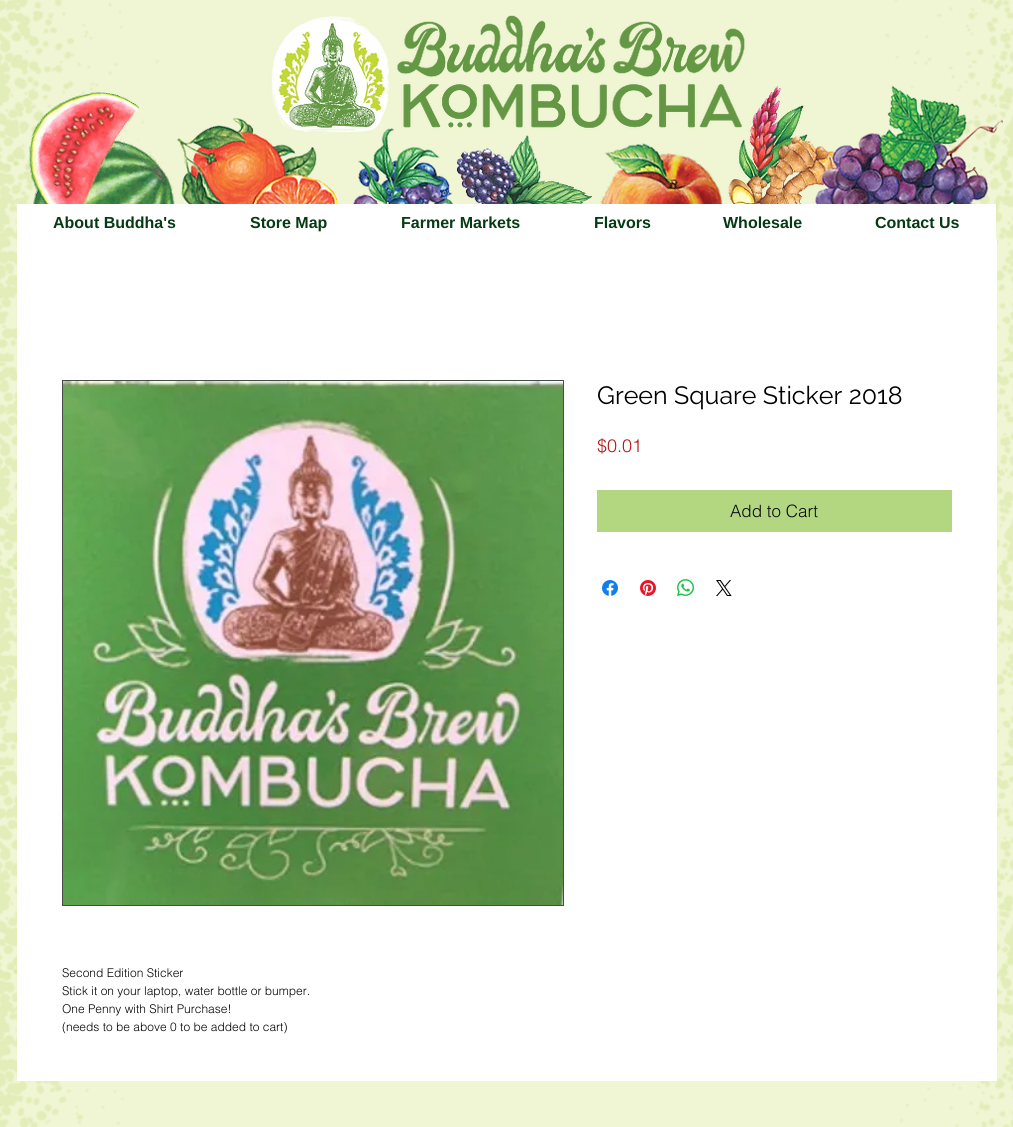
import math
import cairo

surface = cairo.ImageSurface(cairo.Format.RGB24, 1013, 1127)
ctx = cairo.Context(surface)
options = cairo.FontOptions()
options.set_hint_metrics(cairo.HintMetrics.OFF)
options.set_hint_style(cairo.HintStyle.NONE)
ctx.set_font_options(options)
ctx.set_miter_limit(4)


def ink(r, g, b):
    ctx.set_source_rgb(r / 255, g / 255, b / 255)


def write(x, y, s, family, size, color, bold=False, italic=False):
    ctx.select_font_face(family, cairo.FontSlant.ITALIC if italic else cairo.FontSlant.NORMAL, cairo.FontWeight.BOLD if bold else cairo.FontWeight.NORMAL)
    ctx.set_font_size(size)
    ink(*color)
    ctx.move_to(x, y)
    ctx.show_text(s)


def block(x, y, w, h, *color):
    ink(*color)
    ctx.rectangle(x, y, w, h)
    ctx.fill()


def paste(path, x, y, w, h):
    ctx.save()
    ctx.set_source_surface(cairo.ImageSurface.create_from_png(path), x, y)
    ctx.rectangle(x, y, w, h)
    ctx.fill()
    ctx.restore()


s1 = dict(family="Liberation Sans", size=16, color=(6, 58, 19), bold=True)
s2 = dict(family="Raleway", size=25, color=(0, 0, 0))
s3 = dict(family="helvetica Light", size=18, color=(178, 21, 21))
s4 = dict(family="helvetica Light", size=17, color=(9, 10, 18))
s5 = dict(family="helvetica Light", size=12, color=(0, 0, 0))

ink(240, 245, 211)
ctx.paint()
paste("pic1.png", 0, 0, 1013, 1127)
paste("pic2.png", 29, 15, 974, 189)
block(17, 204, 979, 35, 255, 255, 255)
write(53, 228, "About Buddha's", **s1)
write(250, 228, "Store Map", **s1)
write(401, 228, "Farmer Markets", **s1)
write(594, 228, "Flavors", **s1)
write(723, 228, "Wholesale", **s1)
write(875, 228, "Contact Us", **s1)
block(17, 239, 980, 842, 255, 255, 255)
write(597, 404, "Green Square Sticker 2018", **s2)
write(597, 452, "$0.01", **s3)
block(597, 490, 355, 42, 179, 214, 129)
write(730, 517, "Add to Cart", **s4)
paste("pic3.png", 602, 580, 16, 16)
paste("pic4.png", 640, 580, 16, 16)
paste("pic5.png", 677, 579, 17, 17)
paste("pic6.png", 716, 580, 16, 16)
ctx.rectangle(62.5, 380.5, 501, 525)
ink(74, 74, 74)
ctx.set_line_width(1)
ctx.stroke()
paste("pic7.png", 63, 381, 500, 524)
write(62, 977, "Second Edition Sticker", **s5)
write(62, 995, "Stick it on your laptop, water bottle or bumper.", **s5)
write(62, 1013, "One Penny with Shirt Purchase!", **s5)
write(62, 1031, "(needs to be above 0 to be added to cart)", **s5)
surface.write_to_png("screenshot.png")
